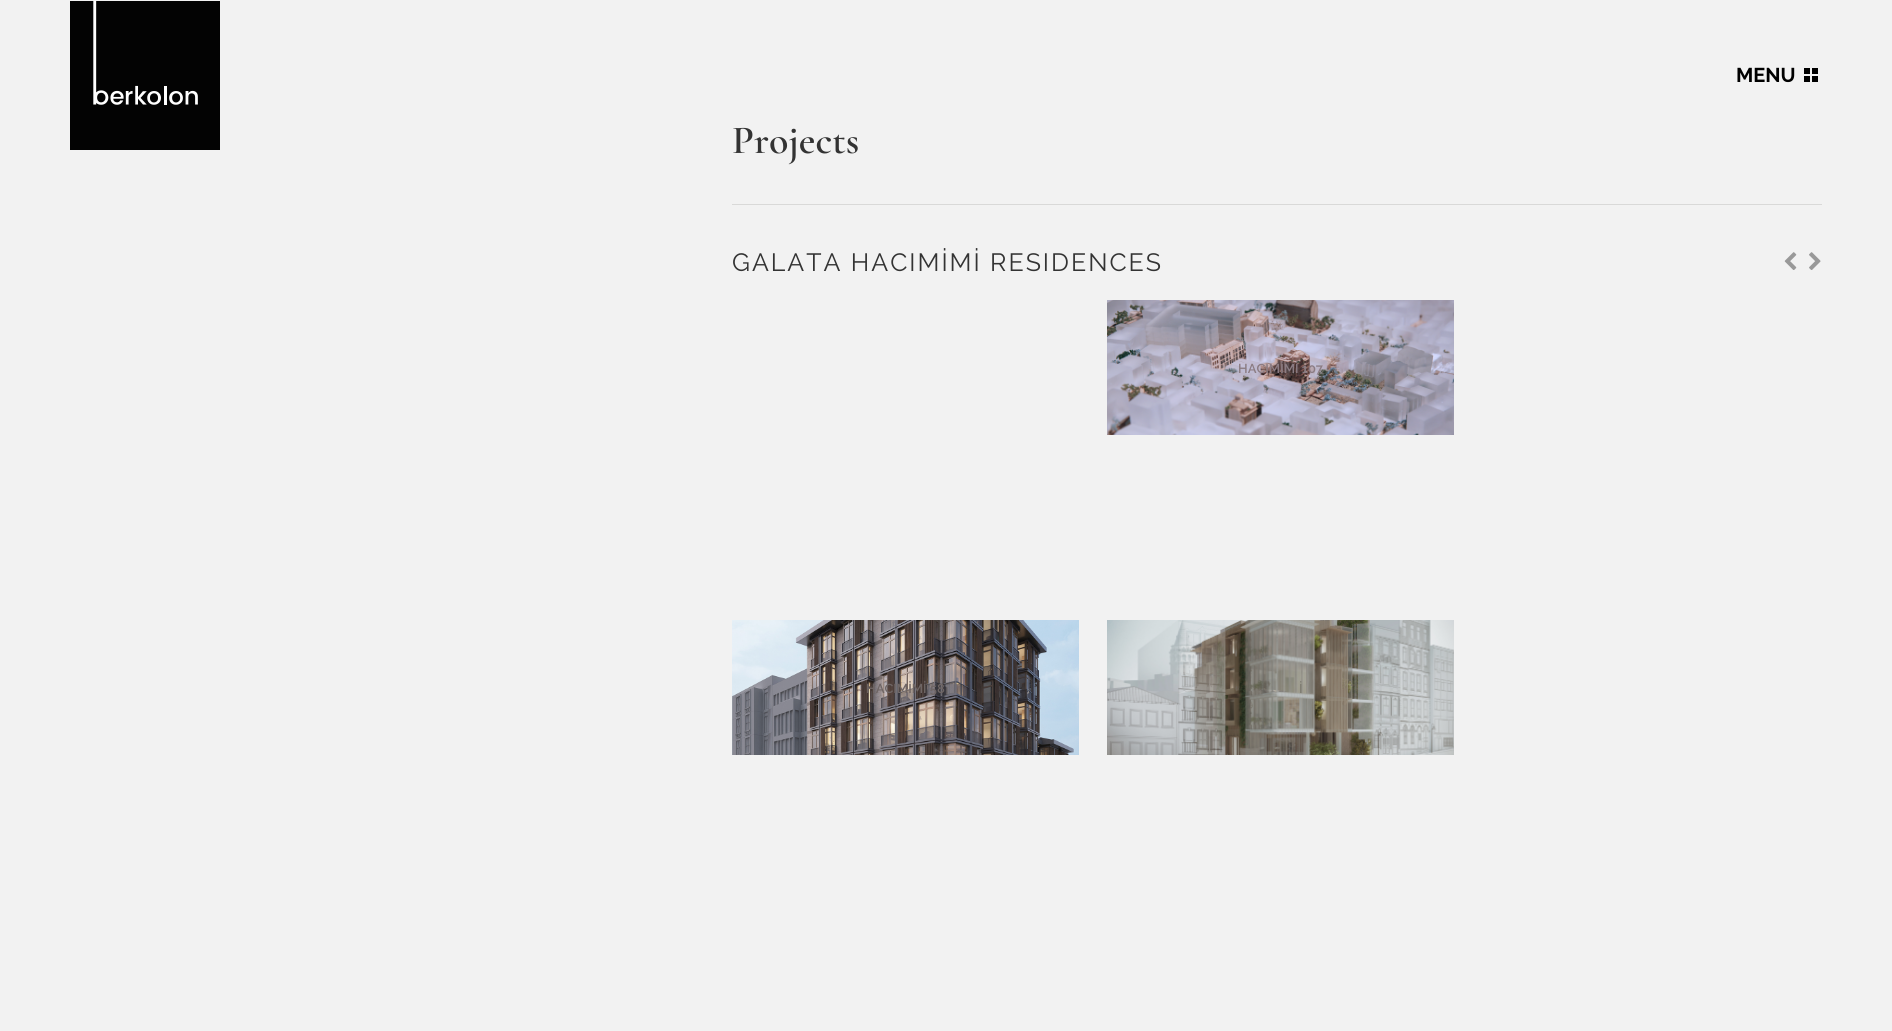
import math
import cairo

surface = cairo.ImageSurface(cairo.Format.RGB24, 1892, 1031)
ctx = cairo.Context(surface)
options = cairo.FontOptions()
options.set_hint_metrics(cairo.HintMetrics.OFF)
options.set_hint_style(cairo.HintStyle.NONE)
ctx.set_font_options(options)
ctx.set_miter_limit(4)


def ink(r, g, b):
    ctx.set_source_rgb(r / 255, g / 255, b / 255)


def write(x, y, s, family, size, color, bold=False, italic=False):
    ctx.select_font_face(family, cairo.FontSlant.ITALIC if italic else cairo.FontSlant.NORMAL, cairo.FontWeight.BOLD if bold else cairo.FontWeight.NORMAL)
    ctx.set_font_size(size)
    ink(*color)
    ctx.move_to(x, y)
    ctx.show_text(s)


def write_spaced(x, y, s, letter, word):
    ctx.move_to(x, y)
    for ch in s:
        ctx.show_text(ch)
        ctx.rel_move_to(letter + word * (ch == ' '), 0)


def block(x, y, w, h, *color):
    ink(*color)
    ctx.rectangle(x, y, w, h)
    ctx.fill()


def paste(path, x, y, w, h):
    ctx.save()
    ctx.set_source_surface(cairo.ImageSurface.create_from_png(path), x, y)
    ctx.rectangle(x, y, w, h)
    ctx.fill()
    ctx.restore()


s1 = dict(family="Raleway", size=20, color=(0, 0, 0), bold=True)
s2 = dict(family="Cormorant Garamond SemiBold", size=40, color=(51, 51, 51))
s3 = dict(family="Raleway SemiBold", size=13, color=(110, 101, 100))
s4 = dict(family="Raleway SemiBold", size=13, color=(139, 124, 131))
s5 = dict(family="Raleway SemiBold", size=13, color=(126, 124, 114))

ink(242, 242, 242)
ctx.paint()
paste("pic1.png", 70, 0, 150, 150)
write(1736, 82, "MENU", **s1)
block(1804, 68, 6, 6, 0, 0, 0)
block(1812, 68, 6, 6, 0, 0, 0)
block(1804, 76, 6, 6, 0, 0, 0)
block(1812, 76, 6, 6, 0, 0, 0)
block(732, 204, 1090, 1, 217, 217, 216)
write(732, 153, "Projects", **s2)
ctx.select_font_face("Raleway")
ctx.set_font_size(25)
write_spaced(732, 271, "GALATA HACIMİMİ RESIDENCES", 2, 0)
paste("pic2.png", 1784, 252, 13, 18)
paste("pic3.png", 1809, 252, 12, 18)
paste("pic4.png", 732, 620, 347, 135)
write(866, 693, "HACIMİMİ 58", **s3)
paste("pic5.png", 1107, 300, 347, 135)
write(1238, 373, "HACIMİMİ 107", **s4)
paste("pic6.png", 1107, 620, 347, 135)
write(1299, 693, "İ", **s5)
surface.write_to_png("screenshot.png")
